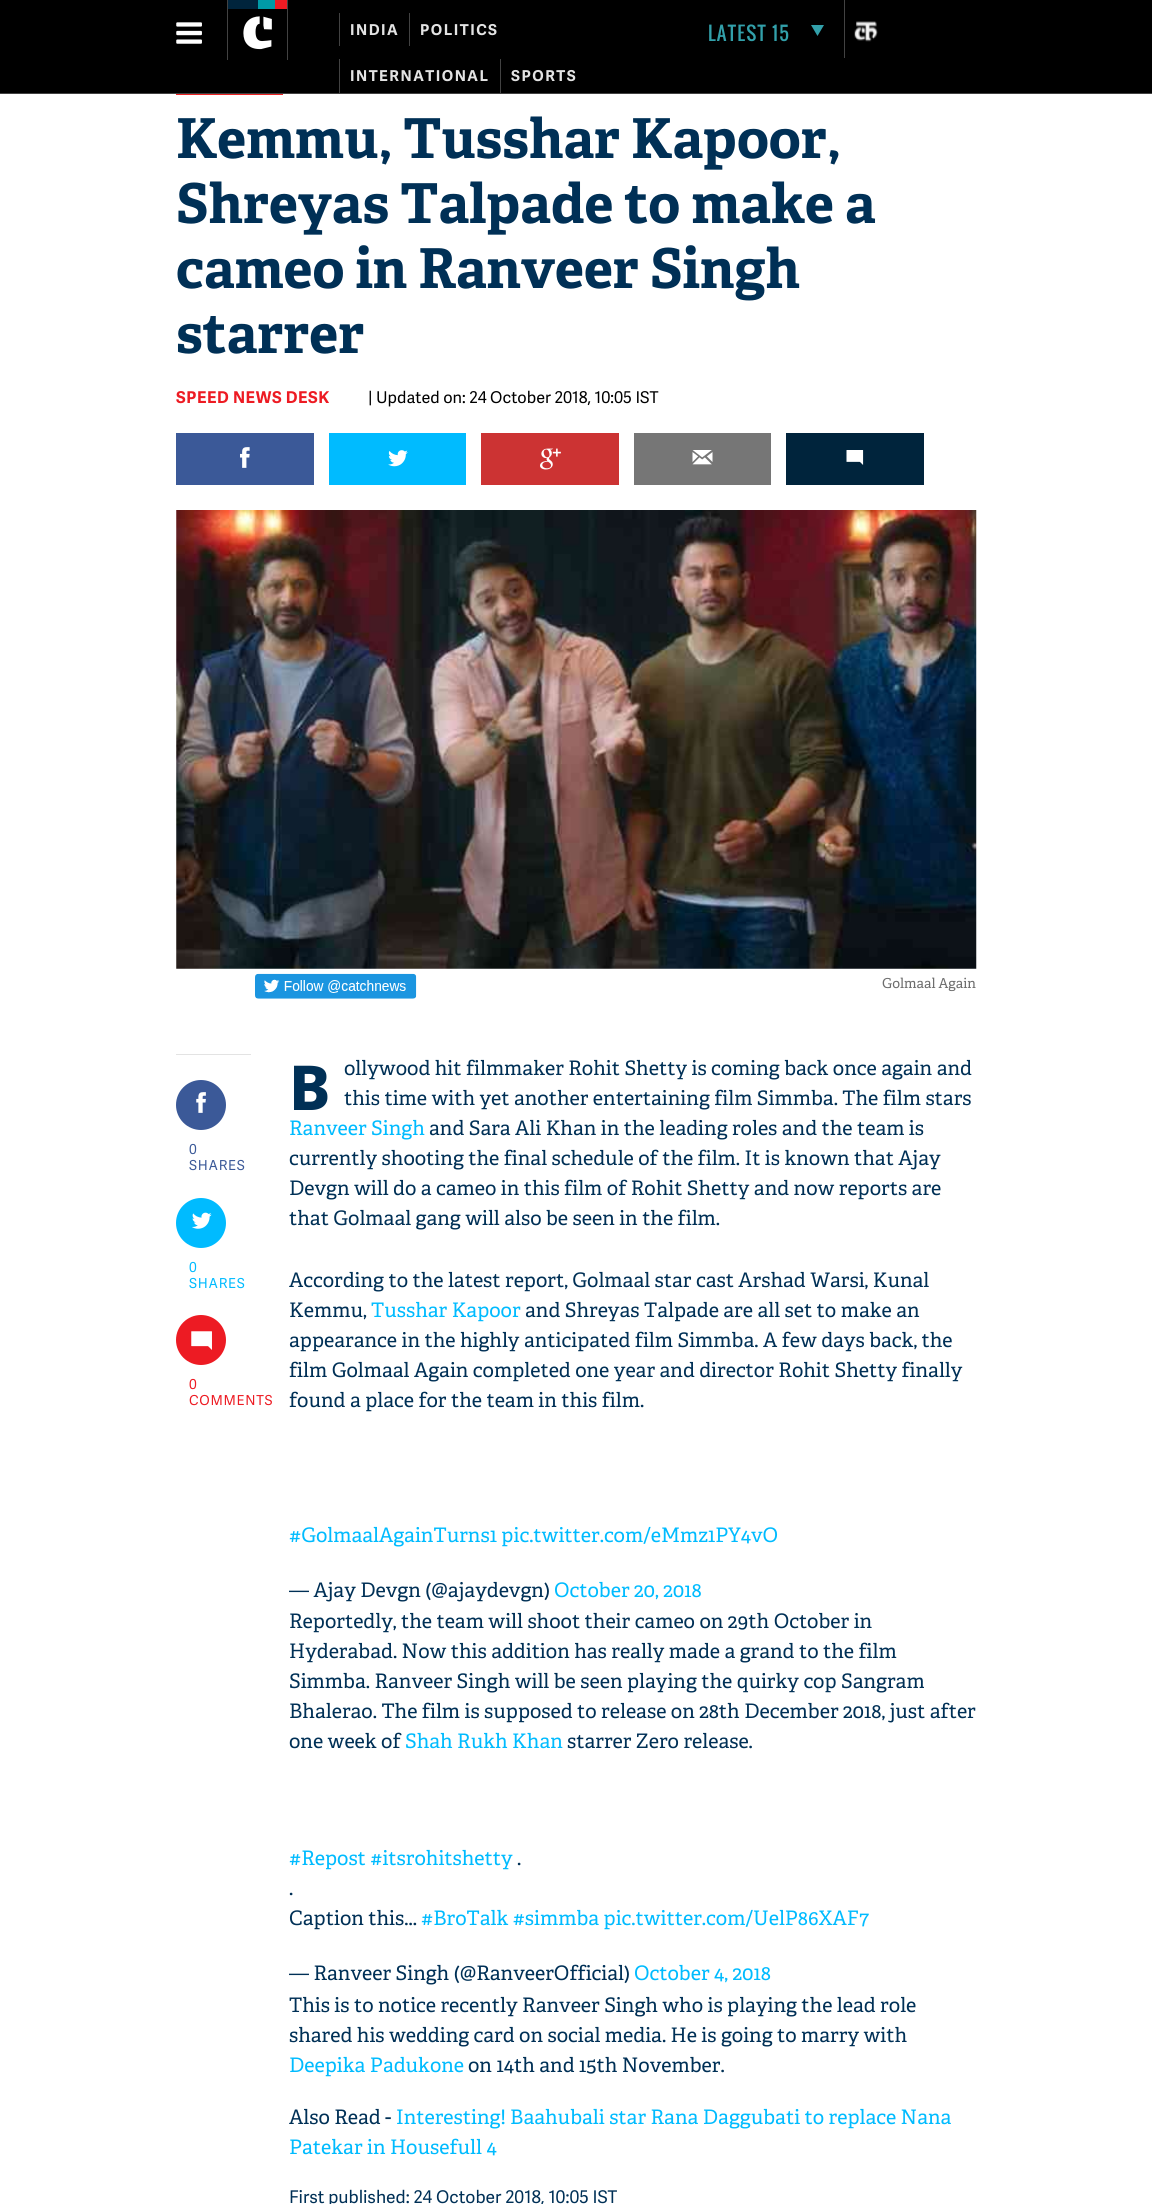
import math
import cairo

surface = cairo.ImageSurface(cairo.Format.RGB24, 1152, 2204)
ctx = cairo.Context(surface)
options = cairo.FontOptions()
options.set_hint_metrics(cairo.HintMetrics.OFF)
options.set_hint_style(cairo.HintStyle.NONE)
ctx.set_font_options(options)
ctx.set_miter_limit(4)


def ink(r, g, b):
    ctx.set_source_rgb(r / 255, g / 255, b / 255)


def write(x, y, s, family, size, color, bold=False, italic=False):
    ctx.select_font_face(family, cairo.FontSlant.ITALIC if italic else cairo.FontSlant.NORMAL, cairo.FontWeight.BOLD if bold else cairo.FontWeight.NORMAL)
    ctx.set_font_size(size)
    ink(*color)
    ctx.move_to(x, y)
    ctx.show_text(s)


def write_spaced(x, y, s, letter, word):
    ctx.move_to(x, y)
    for ch in s:
        ctx.show_text(ch)
        ctx.rel_move_to(letter + word * (ch == ' '), 0)


def block(x, y, w, h, *color):
    ink(*color)
    ctx.rectangle(x, y, w, h)
    ctx.fill()


def paste(path, x, y, w, h):
    ctx.save()
    ctx.set_source_surface(cairo.ImageSurface.create_from_png(path), x, y)
    ctx.rectangle(x, y, w, h)
    ctx.fill()
    ctx.restore()


s1 = dict(family="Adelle", size=55, color=(0, 48, 86), bold=True)
s2 = dict(family="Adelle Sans", size=16.25, color=(0, 0, 0))
s3 = dict(family="Adelle", size=13.75, color=(109, 109, 109))
s4 = dict(family="Noto Sans ExtraBold", size=62, color=(0, 48, 86))
s5 = dict(family="Adelle", size=20, color=(0, 48, 86))
s6 = dict(family="Adelle", size=20, color=(0, 187, 255))
s7 = dict(family="Adelle Sans", size=17.5, color=(0, 48, 86))

ink(255, 255, 255)
ctx.paint()
block(0, 0, 1152, 93, 0, 0, 0)
paste("pic1.png", 176, 22, 26, 22)
paste("pic2.png", 227, 0, 61, 60)
block(339, 13, 1, 33, 66, 66, 66)
ctx.select_font_face("Adelle Sans", cairo.FontSlant.NORMAL, cairo.FontWeight.BOLD)
ctx.set_font_size(15)
ink(227, 227, 227)
write_spaced(350, 35, "INDIA", 1.5, 0)
block(409, 13, 1, 33, 66, 66, 66)
ink(227, 227, 227)
write_spaced(420, 35, "POLITICS", 1.5, 0)
block(339, 59, 1, 34, 66, 66, 66)
ink(227, 227, 227)
write_spaced(350, 81, "INTERNATIONAL", 1.5, 0)
block(500, 59, 1, 34, 66, 66, 66)
ink(227, 227, 227)
write_spaced(511, 81, "SPORTS", 1.5, 0)
ctx.select_font_face("Oswald")
ctx.set_font_size(18.75)
ink(50, 160, 170)
write_spaced(708, 41, "LATEST 15", 1.25, 0)
ctx.set_fill_rule(cairo.FillRule.EVEN_ODD)
ctx.new_path()
ctx.move_to(817.5, 36)
ctx.line_to(811, 25)
ctx.line_to(824, 25)
ctx.close_path()
ctx.fill()
block(844, 0, 1, 58, 66, 66, 66)
paste("pic3.png", 854, 21, 24, 21)
block(0, 93, 1152, 1, 66, 66, 66)
block(176, 94, 107, 1, 237, 34, 35)
write(176, 158, "Kemmu, Tusshar Kapoor,", **s1)
write(176, 223, "Shreyas Talpade to make a", **s1)
write(176, 288, "cameo in Ranveer Singh", **s1)
write(176, 353, "starrer", **s1)
ctx.select_font_face("Adelle Sans", cairo.FontSlant.NORMAL, cairo.FontWeight.BOLD)
ctx.set_font_size(16.25)
ink(237, 27, 35)
write_spaced(176, 403, "SPEED NEWS DESK", 0.6, 0)
write(368, 403, "| Updated on: 24 October 2018, 10:05 IST", **s2)
block(176, 433, 138, 52, 59, 89, 152)
paste("pic4.png", 240, 447, 10, 21)
block(329, 433, 137, 52, 0, 187, 255)
paste("pic5.png", 388, 450, 20, 17)
block(481, 433, 138, 52, 204, 51, 51)
paste("pic6.png", 540, 448, 21, 22)
block(634, 433, 137, 52, 118, 118, 118)
paste("pic7.png", 692, 450, 21, 15)
block(786, 433, 138, 52, 0, 36, 60)
paste("pic8.png", 846, 450, 18, 15)
paste("pic9.png", 176, 510, 801, 459)
paste("pic10.png", 255, 973, 162, 26)
write(882, 988, "Golmaal Again", **s3)
block(176, 1054, 75, 1, 227, 227, 227)
ink(59, 89, 152)
ctx.new_path()
ctx.arc(201, 1105, 25, 0, 2 * math.pi)
ctx.fill()
paste("pic11.png", 196, 1092, 10, 21)
ctx.select_font_face("Adelle Sans")
write_spaced(189, 1154, "0", 0.75, 0)
write_spaced(189, 1170, "SHARES", 0.75, 0)
ink(0, 187, 255)
ctx.new_path()
ctx.arc(201, 1223, 25, 0, 2 * math.pi)
ctx.fill()
paste("pic12.png", 192, 1212, 20, 17)
write_spaced(189, 1272, "0", 0.75, 0)
write_spaced(189, 1288, "SHARES", 0.75, 0)
ink(237, 27, 35)
ctx.new_path()
ctx.arc(201, 1340, 25, 0, 2 * math.pi)
ctx.fill()
paste("pic13.png", 191, 1331, 21, 19)
write_spaced(189, 1389, "0", 0.75, 0)
write_spaced(189, 1405, "COMMENTS", 0.75, 0)
write(289, 1110, "B", **s4)
write(344, 1075, "ollywood hit filmmaker Rohit Shetty is coming back once again and", **s5)
write(344, 1105, "this time with yet another entertaining film Simmba. The film stars", **s5)
write(289, 1135, "Ranveer Singh", **s6)
write(429, 1135, "and Sara Ali Khan in the leading roles and the team is", **s5)
write(289, 1165, "currently shooting the final schedule of the film. It is known that Ajay", **s5)
write(289, 1195, "Devgn will do a cameo in this film of Rohit Shetty and now reports are", **s5)
write(289, 1225, "that Golmaal gang will also be seen in the film.", **s5)
write(289, 1287, "According to the latest report, Golmaal star cast Arshad Warsi, Kunal", **s5)
write(289, 1317, "Kemmu,", **s5)
write(371, 1317, "Tusshar Kapoor", **s6)
write(525, 1317, "and Shreyas Talpade are all set to make an", **s5)
write(289, 1347, "appearance in the highly anticipated film Simmba. A few days back, the", **s5)
write(289, 1377, "film Golmaal Again completed one year and director Rohit Shetty finally", **s5)
write(289, 1407, "found a place for the team in this film.", **s5)
write(289, 1542, "#GolmaalAgainTurns1 pic.twitter.com/eMmz1PY4vO", **s6)
write(289, 1597, "— Ajay Devgn (@ajaydevgn)", **s5)
write(554, 1597, "October 20, 2018", **s6)
write(289, 1628, "Reportedly, the team will shoot their cameo on 29th October in", **s5)
write(289, 1658, "Hyderabad. Now this addition has really made a grand to the film", **s5)
write(289, 1688, "Simmba. Ranveer Singh will be seen playing the quirky cop Sangram", **s5)
write(289, 1718, "Bhalerao. The film is supposed to release on 28th December 2018, just after", **s5)
write(289, 1748, "one week of", **s5)
write(405, 1748, "Shah Rukh Khan", **s6)
write(567, 1748, "starrer Zero release.", **s5)
write(289, 1865, "#Repost #itsrohitshetty", **s6)
write(517, 1865, ".", **s5)
write(289, 1895, ".", **s5)
write(289, 1925, "Caption this...", **s5)
write(421, 1925, "#BroTalk #simmba pic.twitter.com/UelP86XAF7", **s6)
write(289, 1980, "— Ranveer Singh (@RanveerOfficial)", **s5)
write(634, 1980, "October 4, 2018", **s6)
write(289, 2012, "This is to notice recently Ranveer Singh who is playing the lead role", **s5)
write(289, 2042, "shared his wedding card on social media. He is going to marry with", **s5)
write(289, 2072, "Deepika Padukone", **s6)
write(468, 2072, "on 14th and 15th November.", **s5)
write(289, 2124, "Also Read -", **s5)
write(396, 2124, "Interesting! Baahubali star Rana Daggubati to replace Nana", **s6)
write(289, 2154, "Patekar in Housefull 4", **s6)
write(289, 2203, "First published: 24 October 2018, 10:05 IST", **s7)
surface.write_to_png("screenshot.png")
